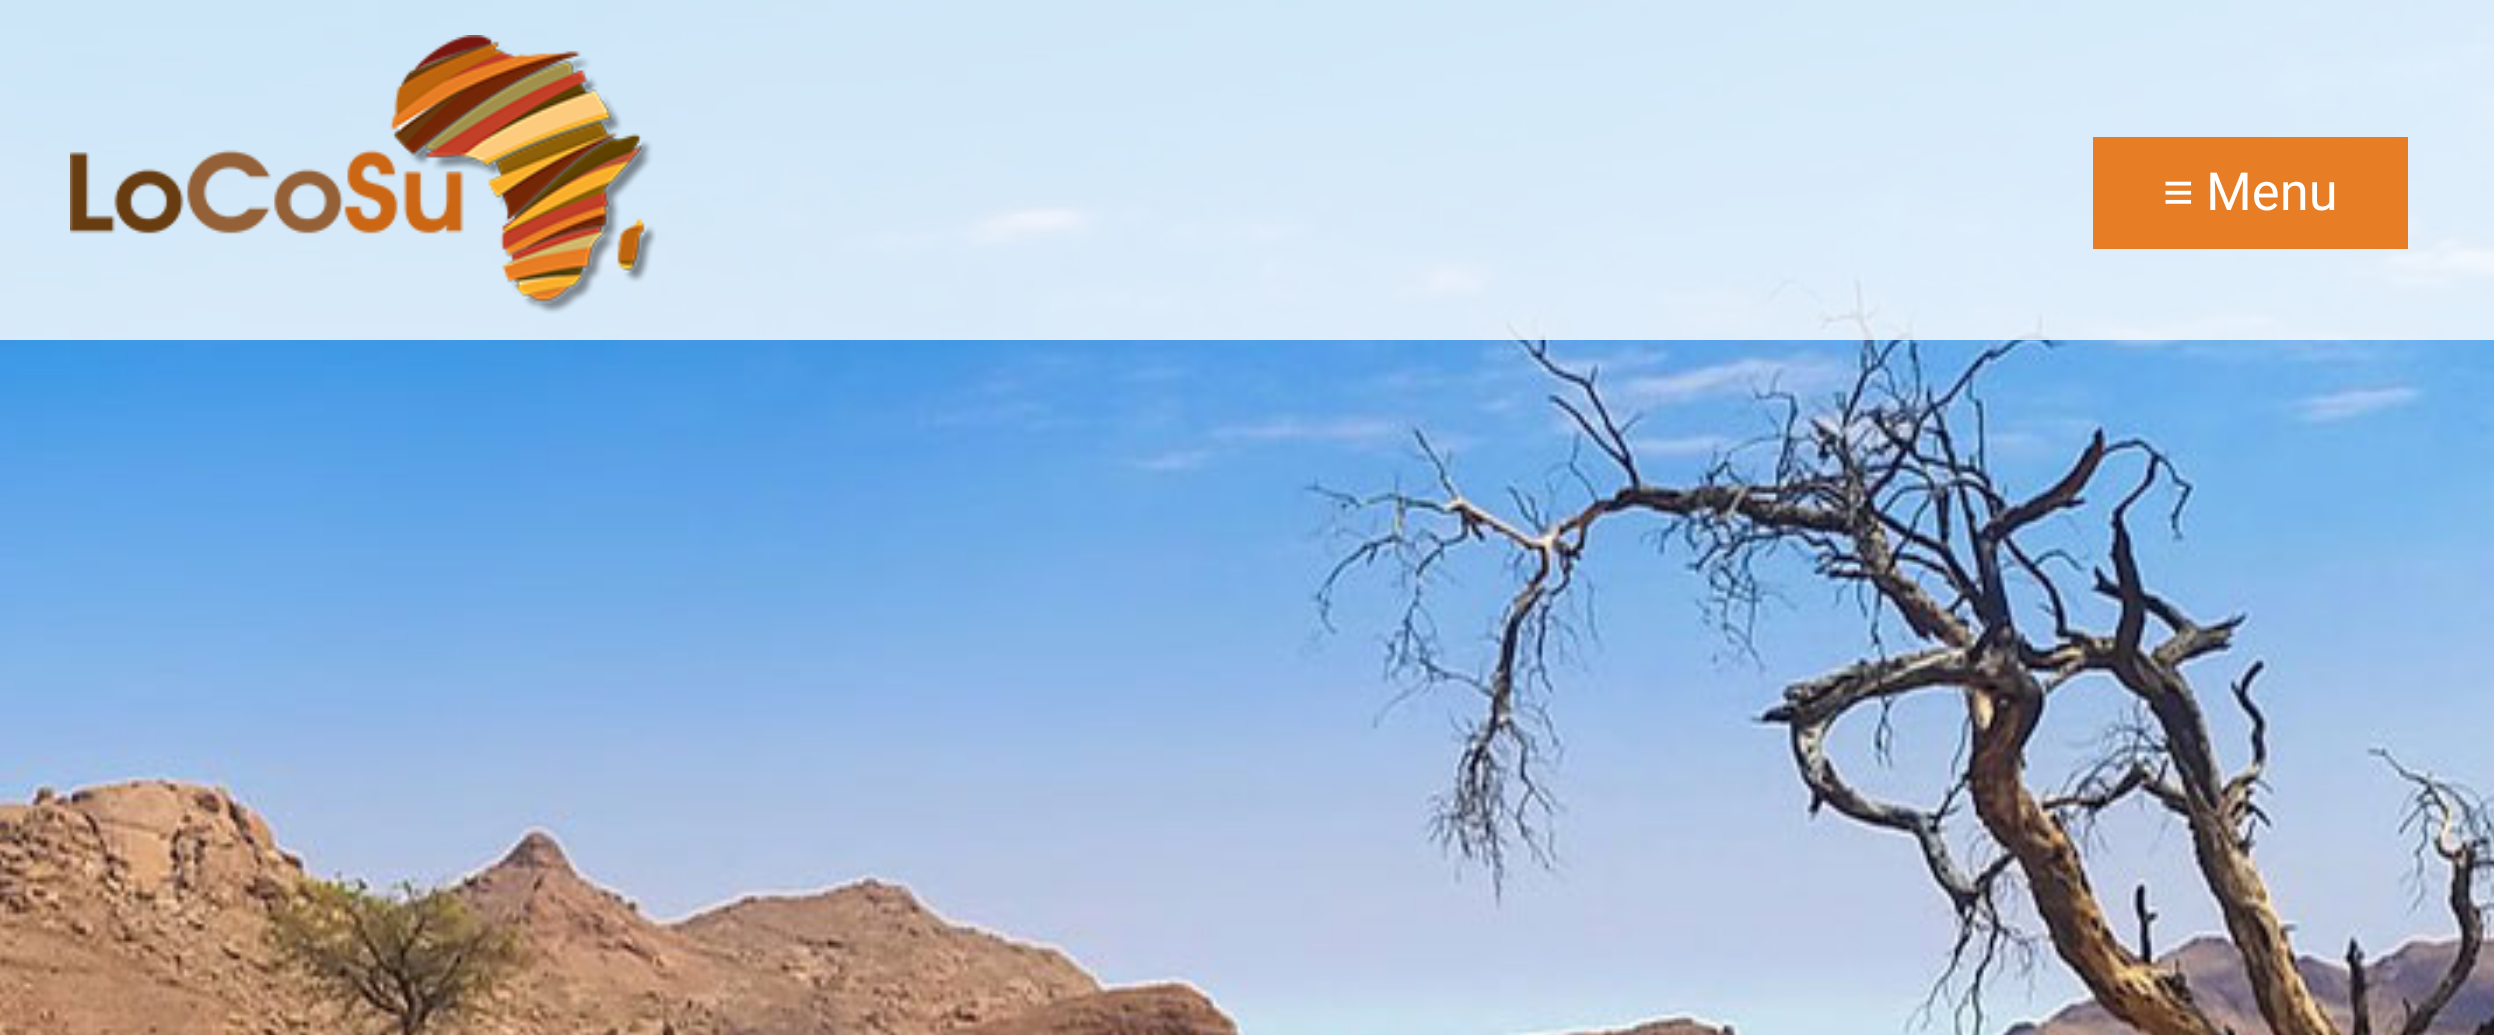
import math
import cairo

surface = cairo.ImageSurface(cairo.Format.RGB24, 2494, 1035)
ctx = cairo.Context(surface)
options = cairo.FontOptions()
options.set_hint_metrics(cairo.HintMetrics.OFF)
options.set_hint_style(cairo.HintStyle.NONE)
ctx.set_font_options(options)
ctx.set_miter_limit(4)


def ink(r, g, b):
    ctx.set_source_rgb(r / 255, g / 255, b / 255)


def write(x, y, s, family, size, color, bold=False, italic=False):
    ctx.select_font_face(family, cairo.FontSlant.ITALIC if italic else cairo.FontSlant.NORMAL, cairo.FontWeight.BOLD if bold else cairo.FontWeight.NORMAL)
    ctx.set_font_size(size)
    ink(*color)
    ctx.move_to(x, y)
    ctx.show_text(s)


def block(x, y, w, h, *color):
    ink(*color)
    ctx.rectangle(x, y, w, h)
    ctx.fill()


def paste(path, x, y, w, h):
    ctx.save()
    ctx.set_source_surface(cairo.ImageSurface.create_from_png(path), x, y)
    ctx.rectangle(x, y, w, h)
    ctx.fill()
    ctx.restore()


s1 = dict(family="Liberation Sans", size=52.5, color=(255, 255, 255))
s2 = dict(family="Roboto", size=52.5, color=(255, 255, 255))

ink(255, 255, 255)
ctx.paint()
paste("pic1.png", 0, 0, 2494, 1035)
ctx.set_source_rgba(1, 1, 1, 0.8)
ctx.rectangle(0, 0, 2494, 340)
ctx.fill()
paste("pic2.png", 70, 35, 586, 279)
block(2093, 137, 315, 112, 231, 126, 37)
write(2163, 210, "≡", **s1)
write(2206, 210, "Menu", **s2)
surface.write_to_png("screenshot.png")
